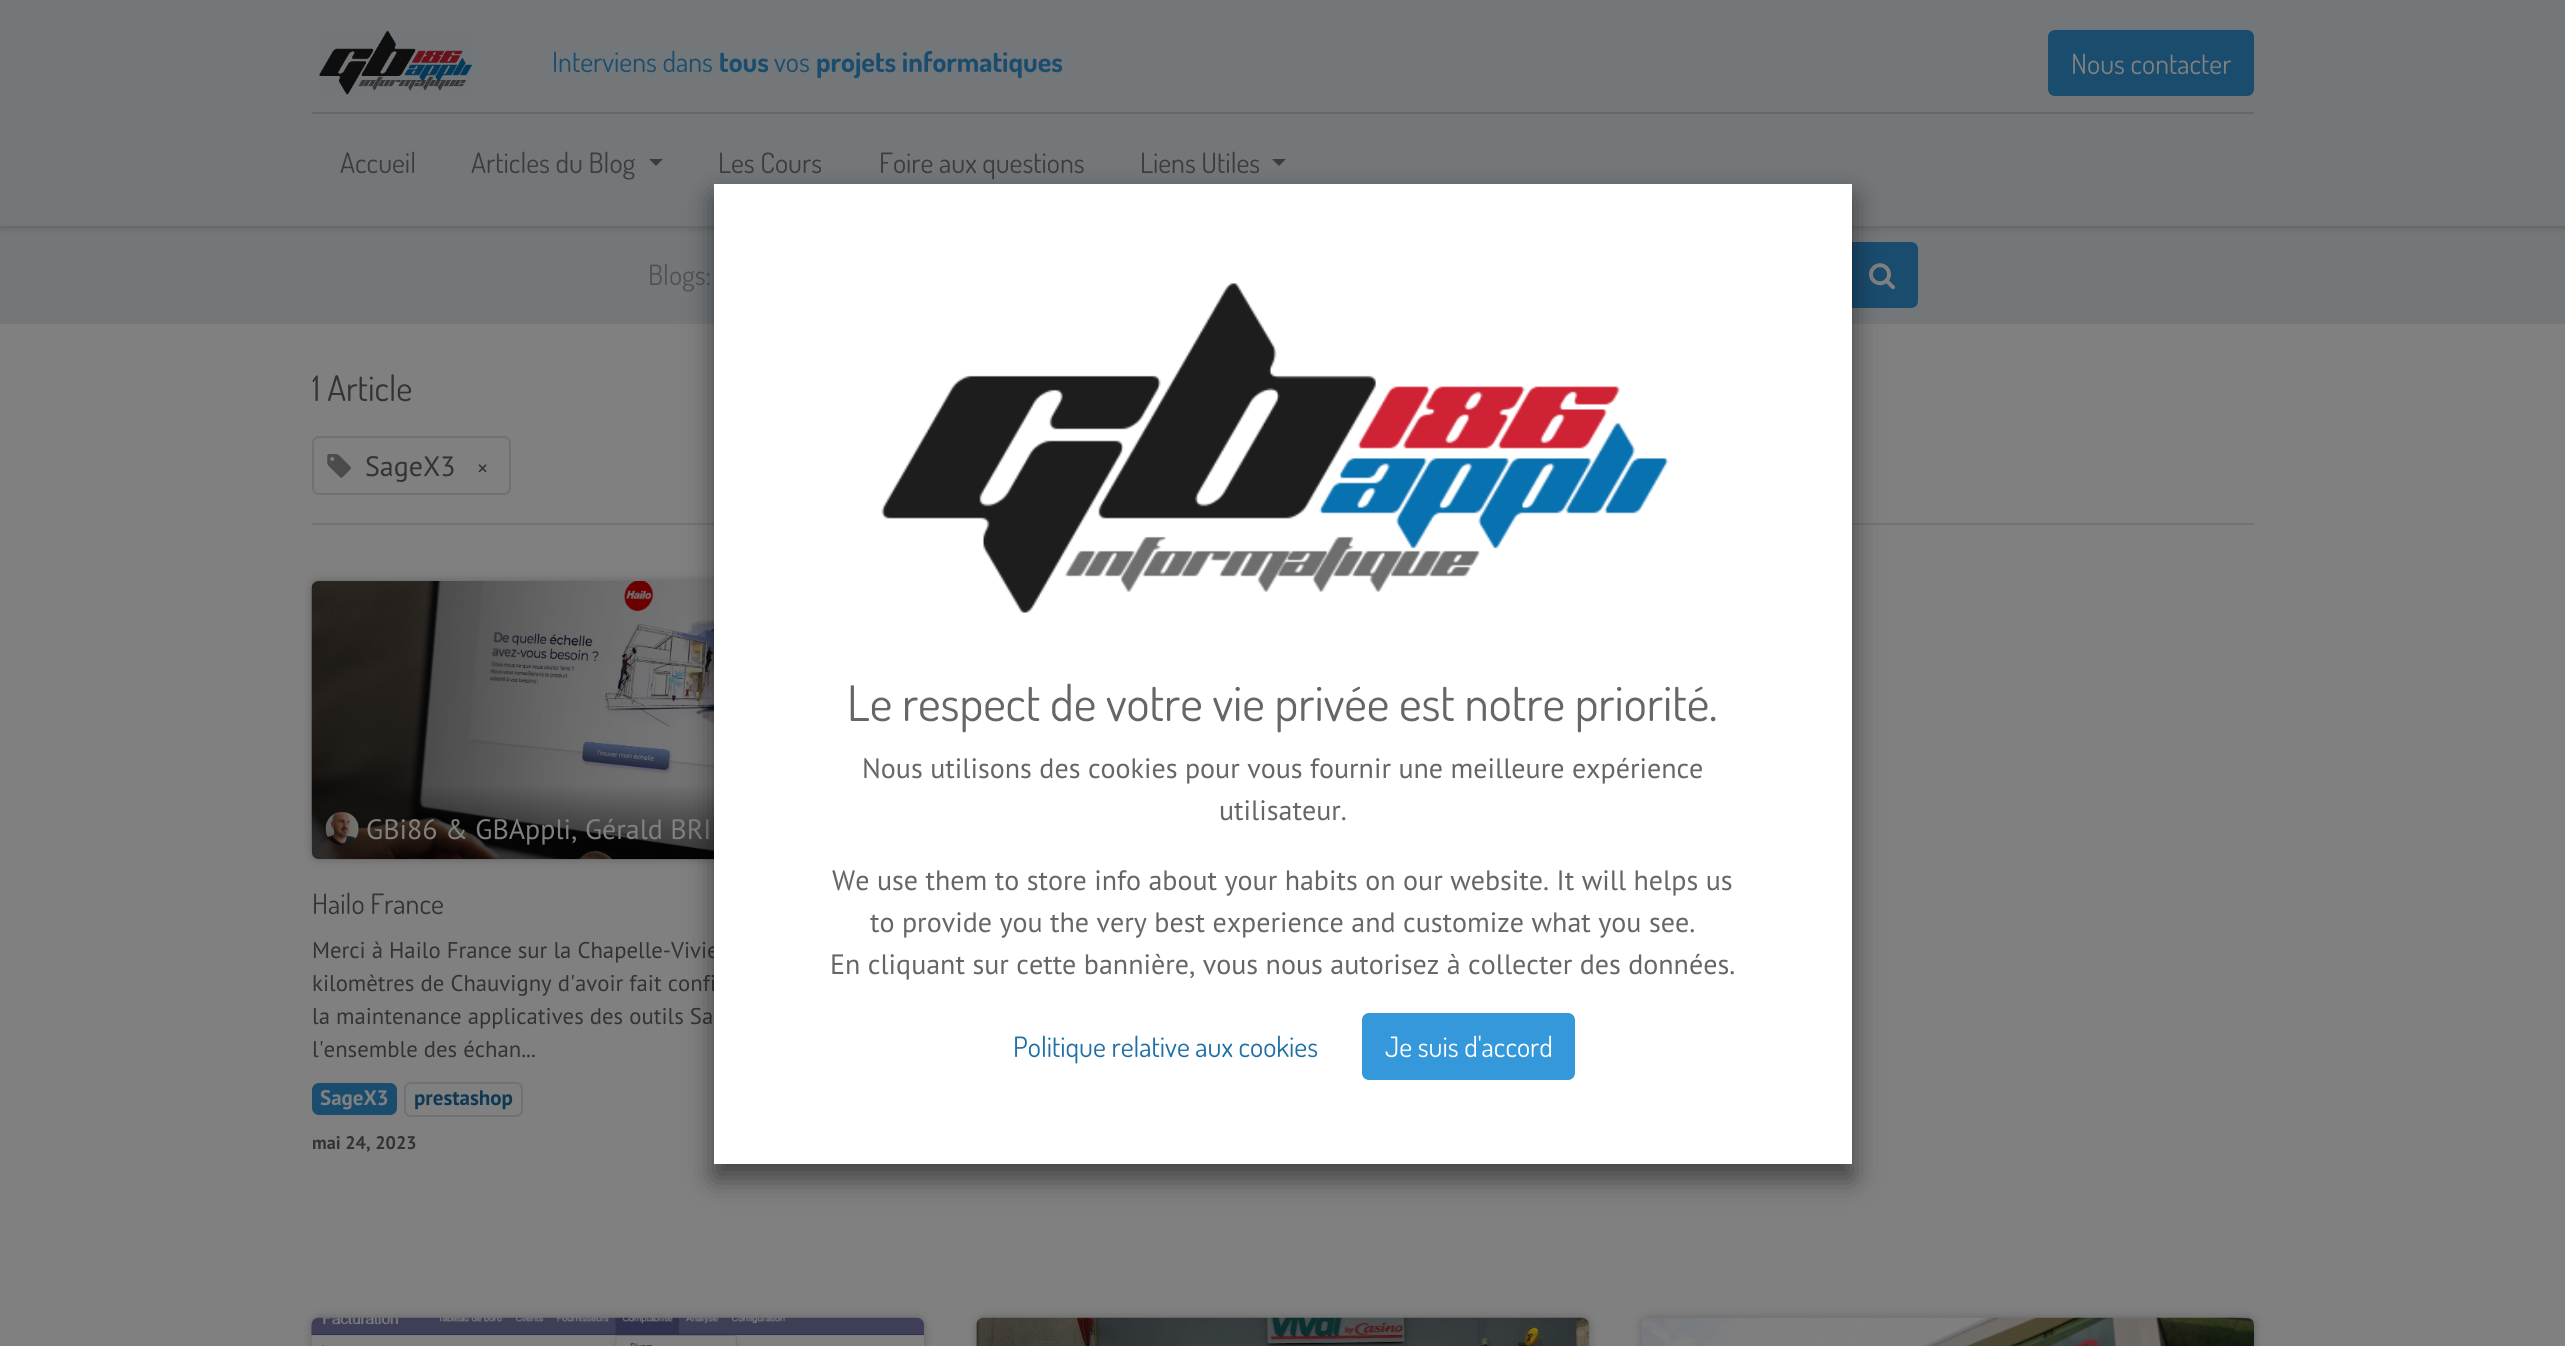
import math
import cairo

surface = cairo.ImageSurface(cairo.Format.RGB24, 2565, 1346)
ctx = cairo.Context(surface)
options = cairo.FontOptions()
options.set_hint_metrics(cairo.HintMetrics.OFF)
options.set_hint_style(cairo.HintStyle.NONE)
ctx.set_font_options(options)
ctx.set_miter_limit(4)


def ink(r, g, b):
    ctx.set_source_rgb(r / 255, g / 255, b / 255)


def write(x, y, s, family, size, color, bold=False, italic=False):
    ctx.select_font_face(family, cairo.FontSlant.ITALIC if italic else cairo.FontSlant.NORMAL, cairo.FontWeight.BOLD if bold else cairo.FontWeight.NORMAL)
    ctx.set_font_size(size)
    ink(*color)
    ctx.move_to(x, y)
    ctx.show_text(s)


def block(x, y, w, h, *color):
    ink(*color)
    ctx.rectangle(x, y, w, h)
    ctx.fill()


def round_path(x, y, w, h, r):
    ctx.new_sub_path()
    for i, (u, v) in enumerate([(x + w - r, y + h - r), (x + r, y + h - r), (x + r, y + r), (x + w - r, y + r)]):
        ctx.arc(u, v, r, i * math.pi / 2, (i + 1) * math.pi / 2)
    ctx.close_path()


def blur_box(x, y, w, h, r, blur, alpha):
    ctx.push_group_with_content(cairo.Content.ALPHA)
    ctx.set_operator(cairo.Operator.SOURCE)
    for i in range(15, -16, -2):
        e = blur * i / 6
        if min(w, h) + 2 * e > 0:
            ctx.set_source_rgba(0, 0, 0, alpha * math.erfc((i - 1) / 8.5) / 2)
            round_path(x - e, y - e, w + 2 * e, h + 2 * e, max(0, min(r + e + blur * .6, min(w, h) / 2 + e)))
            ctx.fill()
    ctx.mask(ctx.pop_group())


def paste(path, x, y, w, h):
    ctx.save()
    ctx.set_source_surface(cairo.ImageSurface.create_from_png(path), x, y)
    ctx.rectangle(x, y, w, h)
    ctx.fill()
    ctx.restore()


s1 = dict(family="Dosis", size=28, color=(26, 76, 110))
s2 = dict(family="Dosis", size=28, color=(26, 76, 110), bold=True)
s3 = dict(family="Dosis", size=28, color=(128, 128, 128))
s4 = dict(family="Dosis", size=28, color=(58, 60, 61))
s5 = dict(family="Dosis", size=28, color=(80, 83, 85))
s6 = dict(family="Dosis", size=35, color=(51, 51, 51))
s7 = dict(family="PT Sans", size=28, color=(51, 51, 51))
s8 = dict(family="Dosis", size=28, color=(51, 51, 51))
s9 = dict(family="PT Sans", size=28, color=(128, 128, 128))
s10 = dict(family="PT Sans", size=22.75, color=(51, 51, 51))
s11 = dict(family="PT Sans", size=21, color=(128, 128, 128), bold=True)
s12 = dict(family="PT Sans", size=21, color=(15, 56, 83), bold=True)
s13 = dict(family="PT Sans", size=18.25, color=(51, 51, 51), bold=True)
s14 = dict(family="Dosis", size=49, color=(102, 102, 102))
s15 = dict(family="PT Sans", size=28, color=(102, 102, 102))
s16 = dict(family="Dosis", size=28, color=(29, 111, 165))
s17 = dict(family="Dosis", size=28, color=(255, 255, 255))

ink(128, 128, 128)
ctx.paint()
block(0, 226, 2565, 98, 115, 119, 121)
ink(0, 0, 0)
blur_box(0, 0, 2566, 226, 0, 4.5, 0.25)
block(0, 0, 2565, 226, 115, 119, 121)
paste("pic1.png", 319, 30, 154, 65)
write(552, 72, "Interviens dans", **s1)
write(719, 72, "tous", **s2)
write(774, 72, "vos", **s1)
write(816, 72, "projets informatiques", **s2)
round_path(2049, 31, 204, 64, 6)
ctx.fill_preserve()
ctx.stroke()
write(2071, 74, "Nous contacter", **s3)
block(312, 112, 1942, 2, 102, 102, 102)
write(340, 173, "Accueil", **s4)
write(471, 173, "Articles du Blog", **s4)
ctx.new_path()
ctx.move_to(649, 159)
ctx.line_to(663, 159)
ctx.line_to(656, 166)
ctx.close_path()
ctx.fill()
write(718, 173, "Les Cours", **s4)
write(879, 173, "Foire aux questions", **s4)
write(1140, 173, "Liens Utiles", **s4)
ctx.new_path()
ctx.move_to(1272, 159)
ctx.line_to(1286, 159)
ctx.line_to(1279, 166)
ctx.close_path()
ctx.fill()
write(648, 285, "Blogs:", **s5)
ink(26, 76, 110)
ctx.new_path()
ctx.move_to(1847, 243)
ctx.line_to(1911, 243)
ctx.curve_to(1914.5, 243, 1917, 245.5, 1917, 249)
ctx.line_to(1917, 301)
ctx.curve_to(1917, 304.5, 1914.5, 307, 1911, 307)
ctx.line_to(1847, 307)
ctx.close_path()
ctx.fill_preserve()
ctx.stroke()
paste("pic2.png", 1869, 263, 26, 27)
write(312, 401, "1 Article", **s6)
round_path(313, 437, 197, 57, 6)
ink(111, 113, 115)
ctx.stroke()
paste("pic3.png", 327, 454, 24, 24)
write(365, 476, "SageX3", **s7)
write(477, 476, "×", **s8)
block(312, 523, 1942, 2, 115, 115, 115)
ink(0, 0, 0)
blur_box(312, 581, 612, 278, 7, 4.5, 0.25)
paste("pic4.png", 311, 581, 403, 279)
gradient = cairo.LinearGradient(618, 784, 618, 859)
gradient.add_color_stop_rgba(0, 0, 0, 0, 0)
gradient.add_color_stop_rgba(0.19, 0, 0, 0, 0.13)
gradient.add_color_stop_rgba(0.34, 0, 0, 0, 0.23)
gradient.add_color_stop_rgba(0.47, 0, 0, 0, 0.31)
gradient.add_color_stop_rgba(0.56, 0, 0, 0, 0.36)
gradient.add_color_stop_rgba(0.65, 0, 0, 0, 0.4)
gradient.add_color_stop_rgba(0.73, 0, 0, 0, 0.43)
gradient.add_color_stop_rgba(0.8, 0, 0, 0, 0.46)
gradient.add_color_stop_rgba(0.86, 0, 0, 0, 0.48)
gradient.add_color_stop_rgba(0.91, 0, 0, 0, 0.49)
gradient.add_color_stop_rgba(0.95, 0, 0, 0, 0.49)
gradient.add_color_stop_rgba(0.98, 0, 0, 0, 0.5)
gradient.add_color_stop_rgba(1, 0, 0, 0, 0.5)
ctx.set_source(gradient)
ctx.new_path()
ctx.move_to(312, 784)
ctx.line_to(924, 784)
ctx.line_to(924, 852)
ctx.curve_to(924, 856, 921, 859, 917, 859)
ctx.line_to(319, 859)
ctx.curve_to(315, 859, 312, 856, 312, 852)
ctx.close_path()
ctx.fill()
paste("pic5.png", 325, 812, 34, 33)
write(366, 839, "GBi86 & GBAppli, Gérald BRI", **s9)
write(312, 914, "Hailo France", **s8)
write(312, 958, "Merci à Hailo France sur la Chapelle-Vivie", **s10)
write(312, 991, "kilomètres de Chauvigny d'avoir fait confi", **s10)
write(312, 1024, "la maintenance applicatives des outils Sa", **s10)
write(312, 1057, "l'ensemble des échan...", **s10)
ink(26, 76, 110)
round_path(312, 1083, 85, 32, 7)
ctx.fill()
write(320, 1105, "SageX3", **s11)
round_path(405, 1083, 117, 33, 6)
ink(111, 113, 115)
ctx.stroke()
write(414, 1105, "prestashop", **s12)
write(312, 1149, "mai 24, 2023", **s13)
ink(0, 0, 0)
blur_box(312, 1318, 612, 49, 7, 4.5, 0.25)
paste("pic6.png", 311, 1317, 613, 29)
blur_box(977, 1318, 612, 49, 7, 4.5, 0.25)
paste("pic7.png", 976, 1317, 613, 29)
blur_box(1642, 1318, 612, 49, 7, 4.5, 0.25)
paste("pic8.png", 1641, 1317, 613, 29)
blur_box(714, 198, 1138, 980, 0, 14, 0.5)
block(714, 184, 1138, 980, 255, 255, 255)
paste("pic9.png", 881, 283, 788, 330)
write(847, 721, "Le respect de votre vie privée est notre priorité.", **s14)
write(862, 778, "Nous utilisons des cookies pour vous fournir une meilleure expérience", **s15)
write(1219, 820, "utilisateur.", **s15)
write(832, 890, "We use them to store info about your habits on our website. It will helps us", **s15)
write(870, 932, "to provide you the very best experience and customize what you see.", **s15)
write(830, 974, "En cliquant sur cette bannière, vous nous autorisez à collecter des données.", **s15)
write(1013, 1057, "Politique relative aux cookies", **s16)
ink(52, 152, 219)
round_path(1363, 1014, 211, 65, 6)
ctx.fill_preserve()
ctx.stroke()
write(1385, 1057, "Je suis d'accord", **s17)
surface.write_to_png("screenshot.png")
